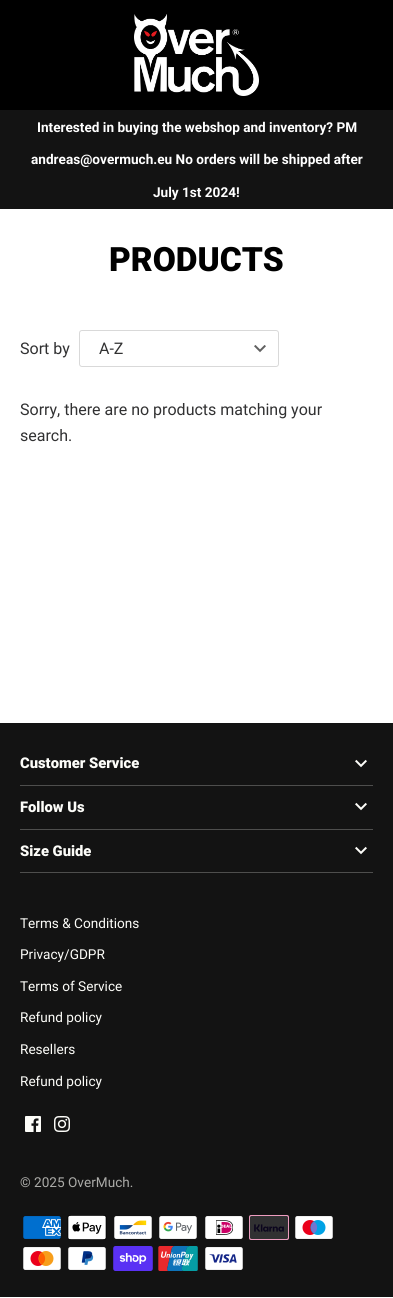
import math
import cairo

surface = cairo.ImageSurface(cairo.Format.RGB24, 393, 1298)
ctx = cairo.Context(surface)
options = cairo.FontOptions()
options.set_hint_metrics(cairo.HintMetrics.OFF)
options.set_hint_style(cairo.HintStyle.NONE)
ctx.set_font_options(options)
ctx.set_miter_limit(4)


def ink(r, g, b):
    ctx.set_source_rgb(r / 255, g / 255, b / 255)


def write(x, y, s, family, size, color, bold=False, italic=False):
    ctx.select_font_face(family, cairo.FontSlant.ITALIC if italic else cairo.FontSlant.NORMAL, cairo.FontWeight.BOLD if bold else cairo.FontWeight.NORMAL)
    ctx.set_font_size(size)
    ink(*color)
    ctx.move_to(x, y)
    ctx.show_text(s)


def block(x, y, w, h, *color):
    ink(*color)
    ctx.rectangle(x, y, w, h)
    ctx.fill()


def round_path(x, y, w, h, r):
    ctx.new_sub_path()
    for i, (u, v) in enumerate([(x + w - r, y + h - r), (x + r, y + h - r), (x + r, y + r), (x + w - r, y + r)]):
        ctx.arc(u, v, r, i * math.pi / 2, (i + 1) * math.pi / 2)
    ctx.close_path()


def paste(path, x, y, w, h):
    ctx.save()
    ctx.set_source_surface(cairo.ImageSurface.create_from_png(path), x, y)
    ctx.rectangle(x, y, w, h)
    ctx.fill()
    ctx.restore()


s1 = dict(family="Roboto", size=13.6, color=(255, 255, 255), bold=True)
s2 = dict(family="Roboto Black", size=33.5, color=(0, 0, 0))
s3 = dict(family="Roboto", size=16, color=(49, 49, 50))
s4 = dict(family="Roboto Black", size=14.75, color=(253, 253, 249))
s5 = dict(family="Roboto", size=13.6, color=(253, 253, 249))
s6 = dict(family="Roboto", size=13.6, color=(171, 171, 168))

ink(255, 255, 255)
ctx.paint()
block(0, 0, 393, 110, 0, 0, 0)
paste("pic1.png", 134, 14, 125, 82)
block(0, 110, 393, 99, 19, 19, 19)
write(37, 132, "Interested in buying the webshop and inventory? PM", **s1)
write(31, 164, "andreas@overmuch.eu No orders will be shipped after", **s1)
write(153, 197, "July 1st 2024!", **s1)
write(109, 271, "PRODUCTS", **s2)
write(20, 354, "Sort by", **s3)
paste("pic2.png", 254, 345, 12, 8)
round_path(79.5, 330.5, 199, 36, 2.5)
ink(217, 217, 217)
ctx.set_line_width(1)
ctx.stroke()
write(99, 354, "A-Z", **s3)
write(20, 415, "Sorry, there are no products matching your", **s3)
write(20, 441, "search.", **s3)
block(0, 723, 393, 574, 19, 19, 19)
block(20, 785, 353, 1, 78, 78, 77)
write(20, 768, "Customer Service", **s4)
paste("pic3.png", 355, 759, 12, 9)
block(20, 829, 353, 1, 78, 78, 77)
write(20, 812, "Follow Us", **s4)
paste("pic3.png", 355, 802, 12, 9)
block(20, 872, 353, 1, 78, 78, 77)
write(20, 856, "Size Guide", **s4)
paste("pic3.png", 355, 846, 12, 9)
write(20, 928, "Terms & Conditions", **s5)
write(20, 959, "Privacy/GDPR", **s5)
write(20, 991, "Terms of Service", **s5)
write(20, 1022, "Refund policy", **s5)
write(20, 1054, "Resellers", **s5)
write(20, 1086, "Refund policy", **s5)
paste("pic4.png", 25, 1116, 16, 16)
paste("pic5.png", 54, 1116, 16, 16)
write(20, 1187, "© 2025 OverMuch.", **s6)
paste("pic6.png", 23, 1216, 38, 23)
paste("pic7.png", 67, 1215, 40, 25)
paste("pic8.png", 114, 1216, 38, 23)
paste("pic9.png", 159, 1216, 38, 23)
paste("pic10.png", 205, 1216, 38, 23)
paste("pic11.png", 249, 1215, 40, 25)
paste("pic12.png", 295, 1216, 38, 23)
paste("pic13.png", 23, 1247, 38, 23)
paste("pic14.png", 68, 1247, 38, 23)
paste("pic15.png", 113, 1246, 40, 25)
paste("pic16.png", 158, 1246, 40, 25)
paste("pic17.png", 205, 1247, 38, 23)
surface.write_to_png("screenshot.png")
